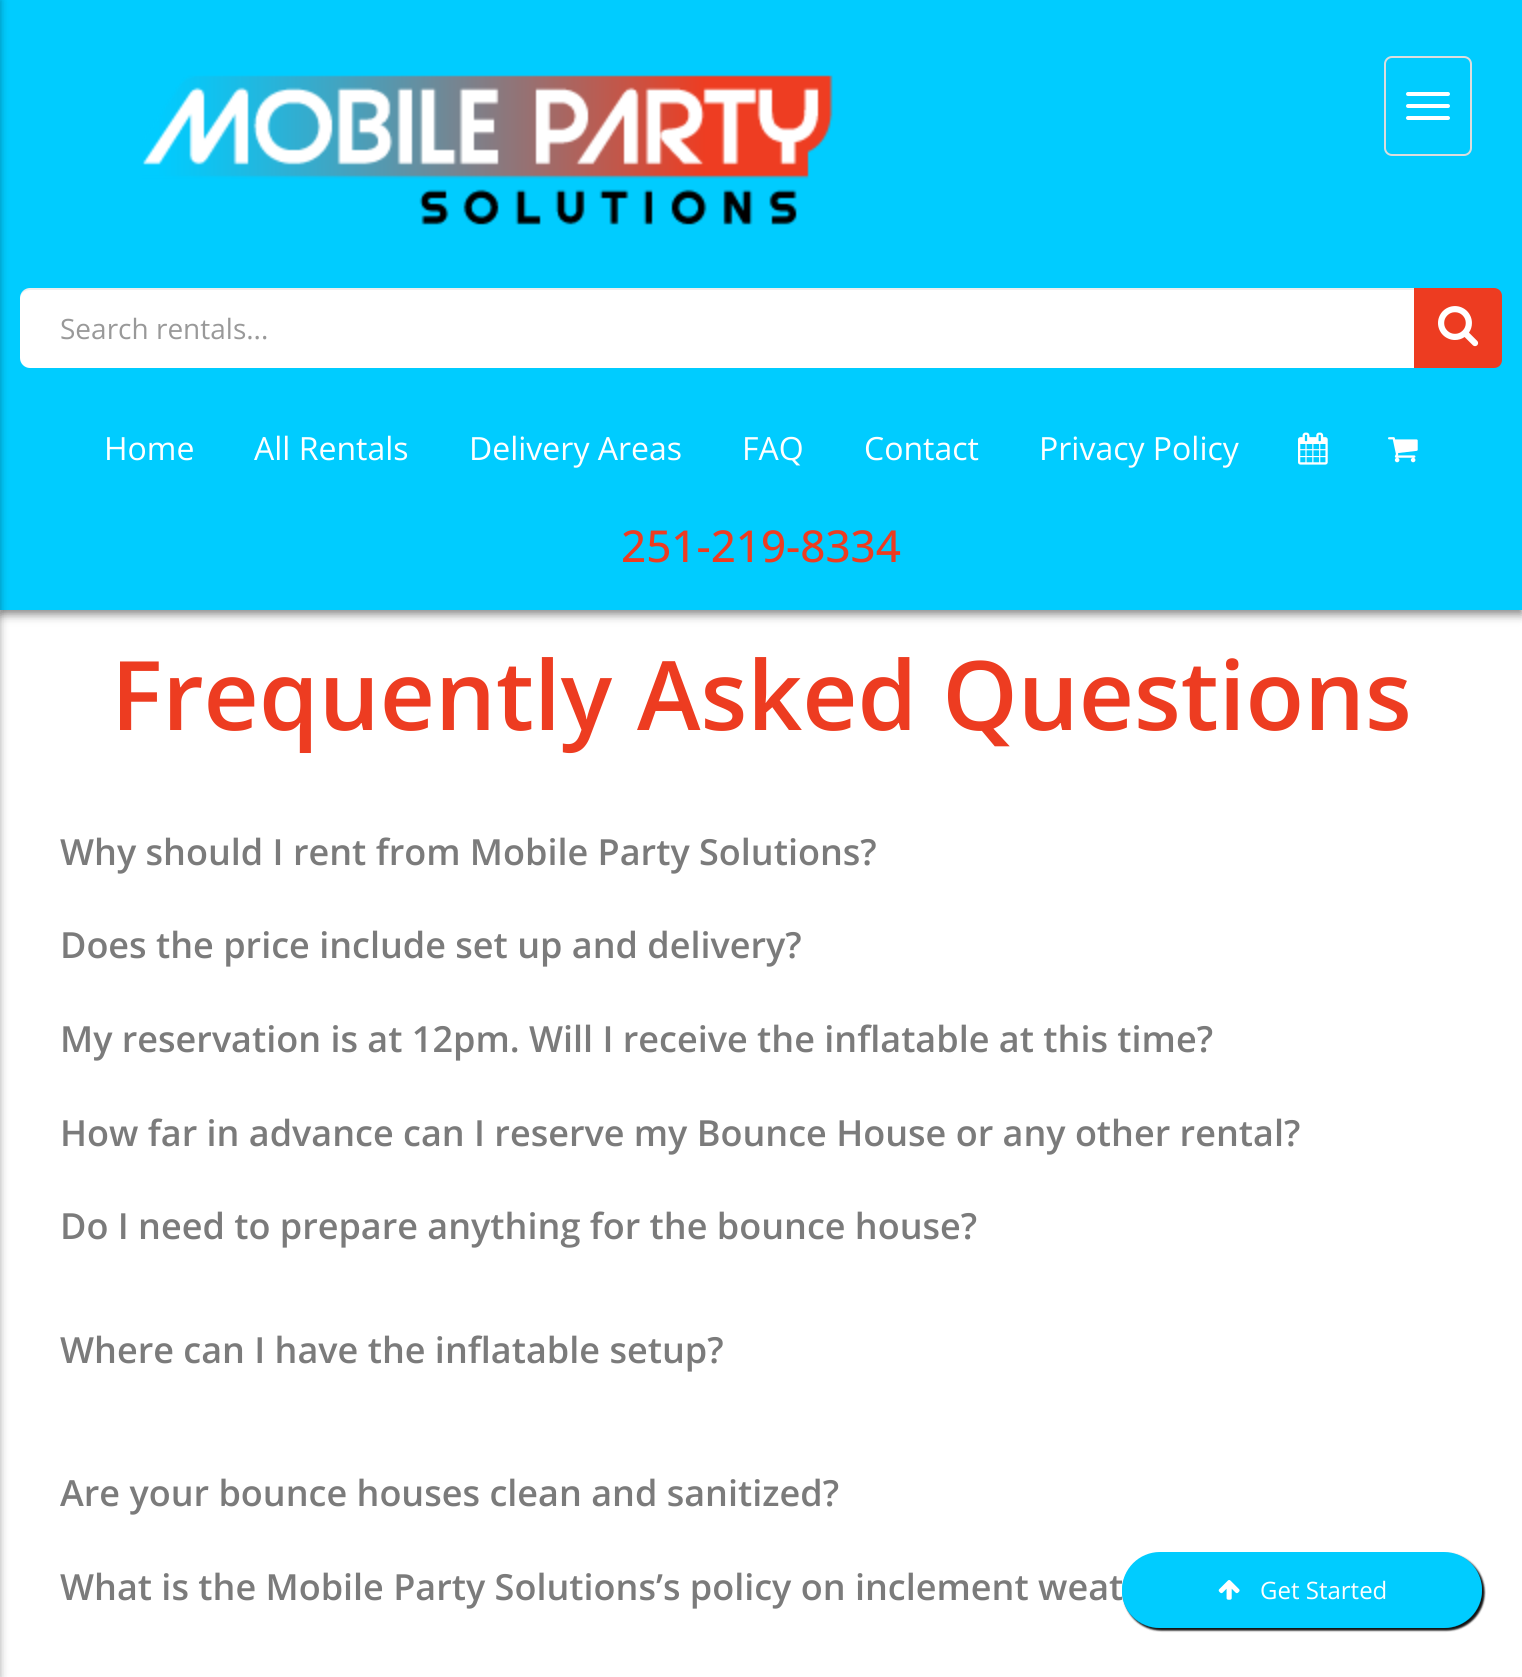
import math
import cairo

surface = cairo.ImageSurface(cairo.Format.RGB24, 1522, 1677)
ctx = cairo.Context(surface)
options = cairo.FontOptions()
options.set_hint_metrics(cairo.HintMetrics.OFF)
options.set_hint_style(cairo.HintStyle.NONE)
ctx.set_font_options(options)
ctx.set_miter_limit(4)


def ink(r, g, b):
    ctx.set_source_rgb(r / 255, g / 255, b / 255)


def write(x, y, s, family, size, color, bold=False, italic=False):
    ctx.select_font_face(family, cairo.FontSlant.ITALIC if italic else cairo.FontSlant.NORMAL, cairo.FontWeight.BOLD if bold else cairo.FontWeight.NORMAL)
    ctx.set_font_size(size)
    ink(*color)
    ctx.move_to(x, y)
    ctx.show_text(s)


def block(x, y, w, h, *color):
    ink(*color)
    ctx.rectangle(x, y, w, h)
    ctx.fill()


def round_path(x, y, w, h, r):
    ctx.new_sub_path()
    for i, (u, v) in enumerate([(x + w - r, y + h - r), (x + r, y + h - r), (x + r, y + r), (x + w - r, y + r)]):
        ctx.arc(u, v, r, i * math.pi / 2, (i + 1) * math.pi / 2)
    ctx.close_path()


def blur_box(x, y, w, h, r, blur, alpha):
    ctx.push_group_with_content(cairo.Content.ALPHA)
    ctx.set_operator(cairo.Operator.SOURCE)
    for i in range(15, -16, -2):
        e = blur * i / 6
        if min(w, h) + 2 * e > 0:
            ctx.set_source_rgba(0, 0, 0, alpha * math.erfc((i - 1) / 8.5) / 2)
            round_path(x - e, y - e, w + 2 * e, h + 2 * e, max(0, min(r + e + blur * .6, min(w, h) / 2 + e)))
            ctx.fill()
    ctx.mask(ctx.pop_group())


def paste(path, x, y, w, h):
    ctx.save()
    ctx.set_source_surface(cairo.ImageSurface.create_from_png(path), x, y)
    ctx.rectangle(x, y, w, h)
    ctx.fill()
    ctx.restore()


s1 = dict(family="Open Sans", size=28, color=(153, 153, 153))
s2 = dict(family="Open Sans", size=32, color=(255, 255, 255))
s3 = dict(family="Open Sans Medium", size=44, color=(237, 60, 33))
s4 = dict(family="Open Sans SemiBold", size=96, color=(237, 60, 33))
s5 = dict(family="Open Sans SemiBold", size=36, color=(123, 123, 123))
s6 = dict(family="Open Sans", size=24, color=(255, 255, 255))

ink(255, 255, 255)
ctx.paint()
ink(0, 0, 0)
blur_box(0, 4, 1522, 610, 0, 5, 0.5)
block(0, 0, 1522, 610, 0, 204, 255)
ink(0, 0, 0)
blur_box(-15, 0, 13, 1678, 0, 5, 0.5)
paste("pic1.png", 142, 75, 691, 150)
round_path(1385, 57, 86, 98, 7)
ink(221, 221, 221)
ctx.stroke()
ink(255, 255, 255)
round_path(1406, 92, 44, 4, 2)
ctx.fill()
round_path(1406, 104, 44, 4, 2)
ctx.fill()
round_path(1406, 116, 44, 4, 2)
ctx.fill()
ctx.new_path()
ctx.move_to(30, 288)
ctx.line_to(1416, 288)
ctx.line_to(1416, 368)
ctx.line_to(30, 368)
ctx.curve_to(24.5, 368, 20, 363.5, 20, 358)
ctx.line_to(20, 298)
ctx.curve_to(20, 292.5, 24.5, 288, 30, 288)
ctx.close_path()
ctx.fill()
ctx.set_source_rgba(0, 0, 0, 0.07)
ctx.new_path()
ctx.move_to(30, 290)
ctx.line_to(1416, 290)
ctx.line_to(1416, 288)
ctx.line_to(30, 288)
ctx.curve_to(23, 288, 20, 294, 20, 300)
ctx.curve_to(20, 294, 24, 290, 30, 290)
ctx.close_path()
ctx.fill()
write(60, 339, "Search rentals...", **s1)
ink(237, 60, 33)
ctx.new_path()
ctx.move_to(1414, 288)
ctx.line_to(1494, 288)
ctx.curve_to(1498.5, 288, 1502, 291.5, 1502, 296)
ctx.line_to(1502, 360)
ctx.curve_to(1502, 364.5, 1498.5, 368, 1494, 368)
ctx.line_to(1414, 368)
ctx.close_path()
ctx.fill()
paste("pic2.png", 1438, 306, 41, 41)
write(104, 460, "Home", **s2)
write(254, 460, "All Rentals", **s2)
write(469, 460, "Delivery Areas", **s2)
write(742, 460, "FAQ", **s2)
write(864, 460, "Contact", **s2)
write(1039, 460, "Privacy Policy", **s2)
paste("pic3.png", 1298, 432, 30, 33)
paste("pic4.png", 1388, 437, 30, 26)
write(621, 562, "251-219-8334", **s3)
write(111, 730, "Frequently Asked Questions", **s4)
write(60, 865, "Why should I rent from Mobile Party Solutions?", **s5)
write(60, 958, "Does the price include set up and delivery?", **s5)
write(60, 1052, "My reservation is at 12pm. Will I receive the inflatable at this time?", **s5)
write(60, 1146, "How far in advance can I reserve my Bounce House or any other rental?", **s5)
write(60, 1239, "Do I need to prepare anything for the bounce house?", **s5)
write(60, 1363, "Where can I have the inflatable setup?", **s5)
write(60, 1506, "Are your bounce houses clean and sanitized?", **s5)
write(60, 1600, "What is the Mobile Party Solutions’s policy on inclement weat", **s5)
ink(0, 0, 0)
blur_box(1124, 1554, 360, 76, 38, 1, 0.5)
blur_box(1124, 1556, 360, 74, 37, 1, 0.5)
blur_box(1124, 1556, 360, 74, 37, 1, 0.5)
ink(0, 204, 255)
round_path(1122, 1554, 360, 74, 37)
ctx.fill()
ink(0, 0, 0)
blur_box(1124, 1554, 360, 76, 38, 1, 0.5)
ink(0, 204, 255)
round_path(1122, 1552, 360, 76, 38)
ctx.fill()
paste("pic5.png", 1218, 1580, 22, 20)
write(1260, 1599, "Get Started", **s6)
surface.write_to_png("screenshot.png")
